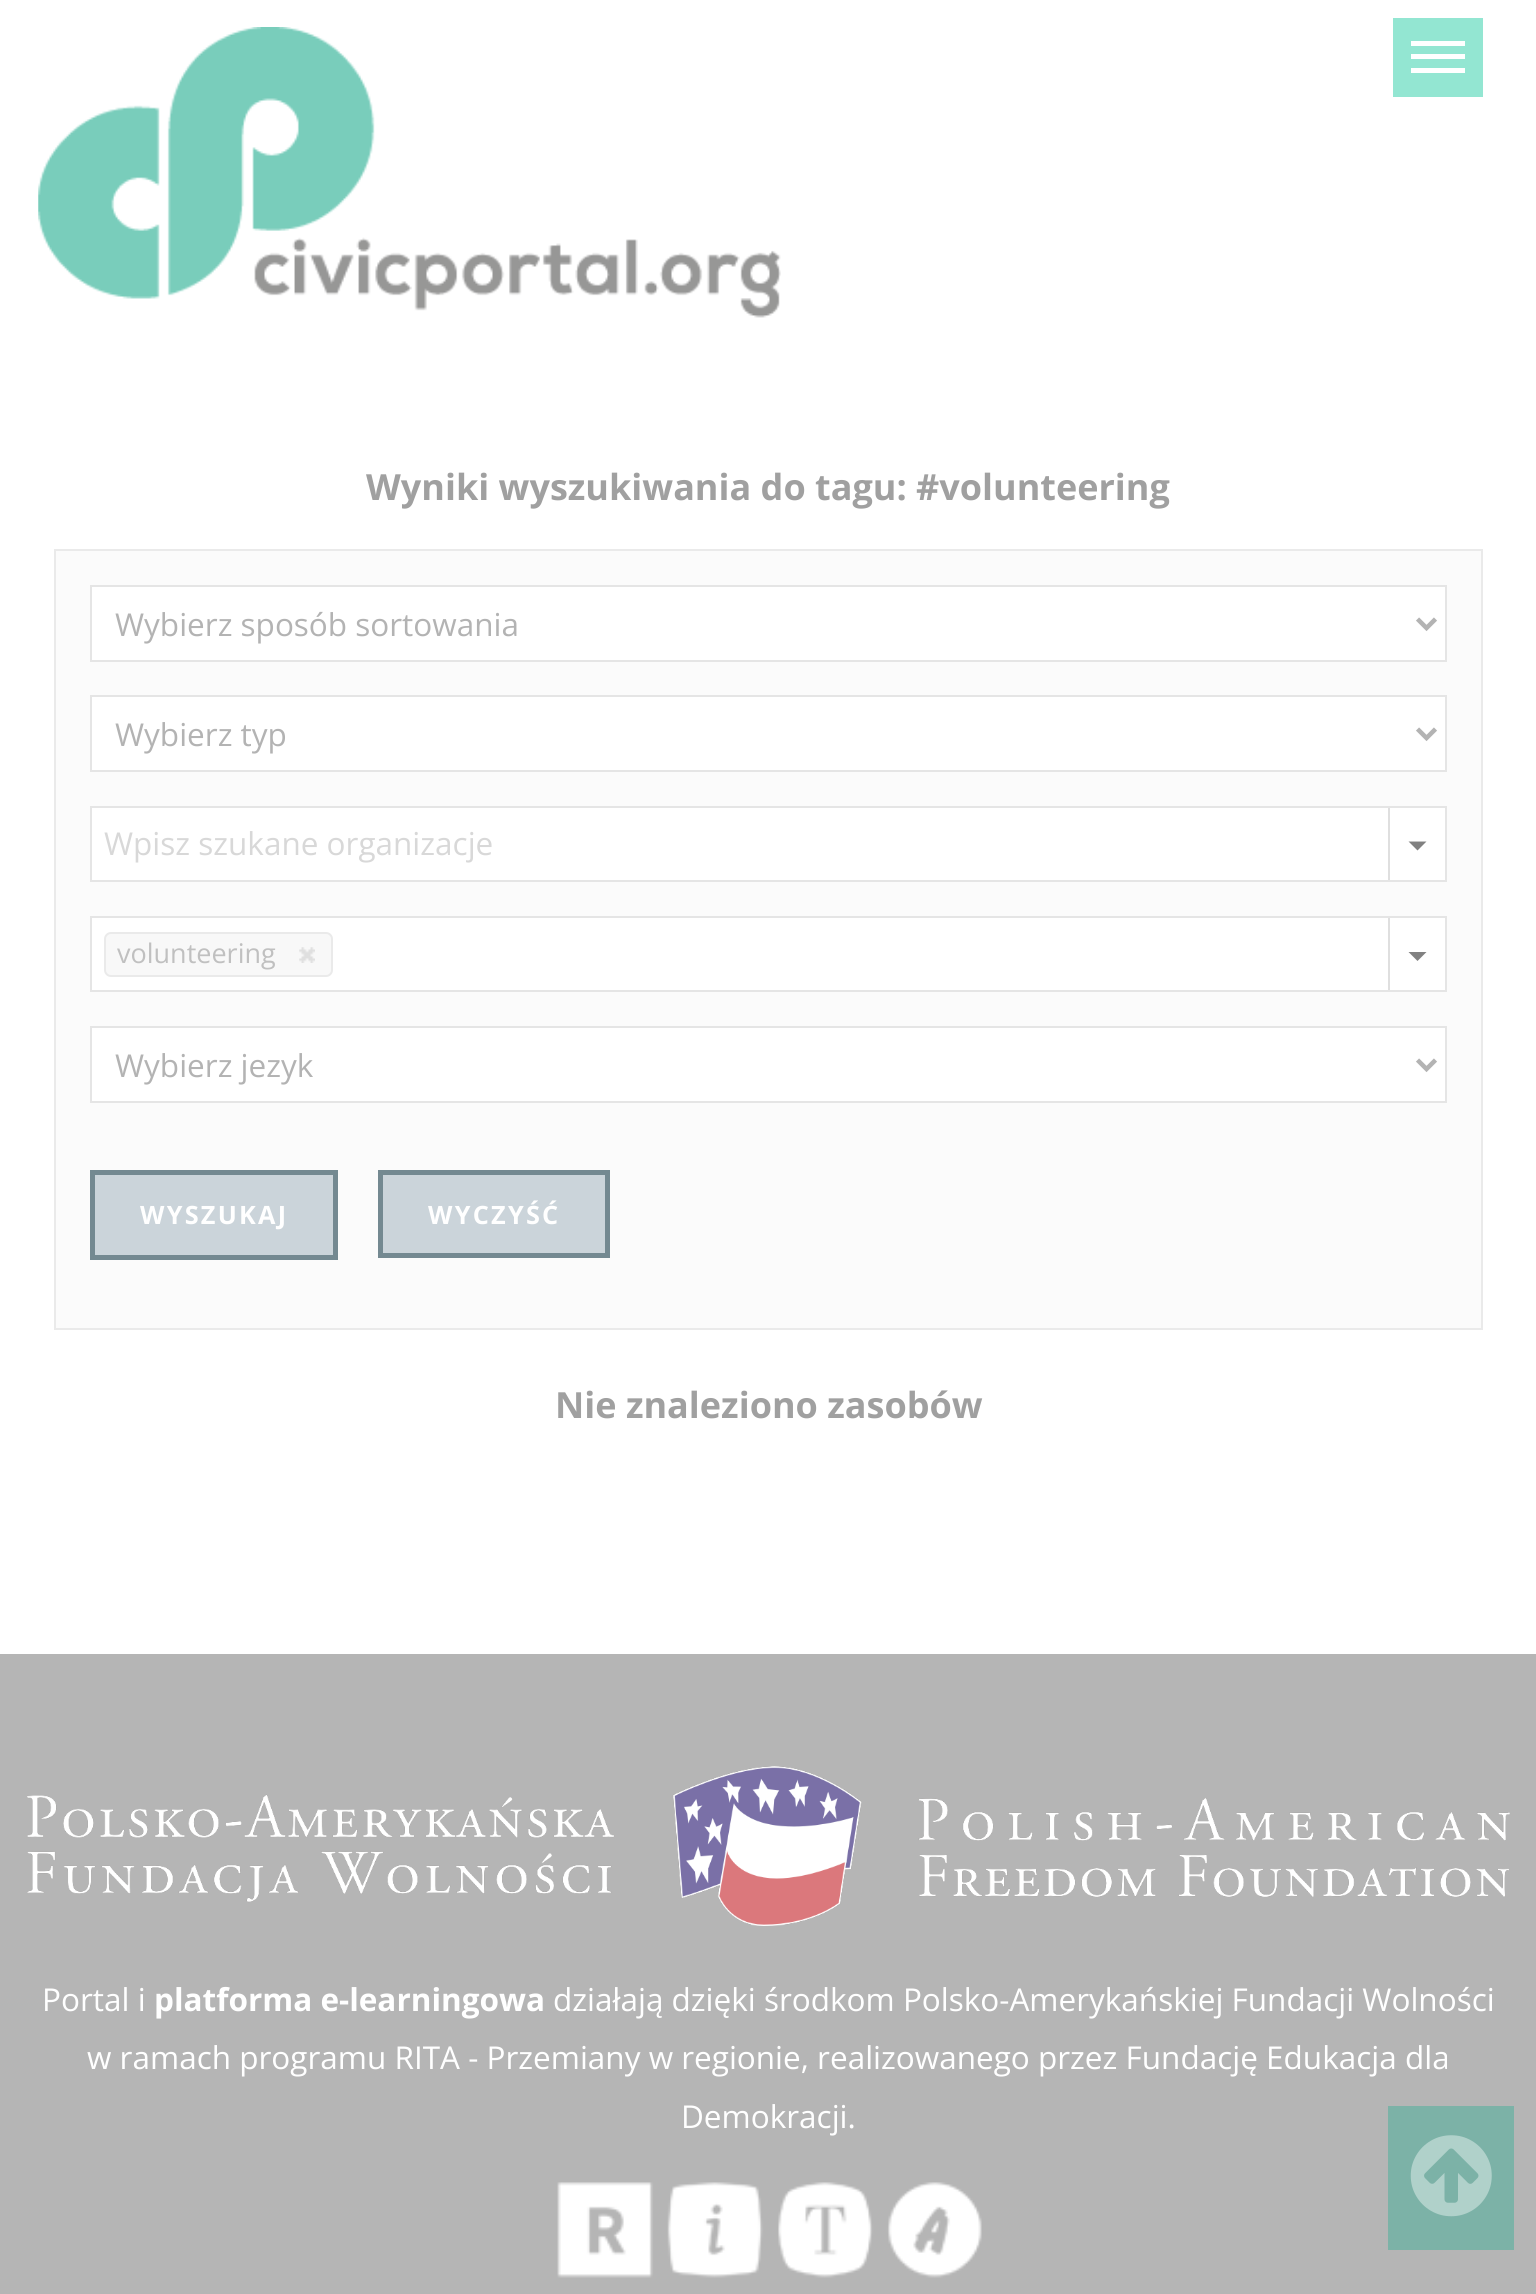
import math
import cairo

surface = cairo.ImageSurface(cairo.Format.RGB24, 1536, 2294)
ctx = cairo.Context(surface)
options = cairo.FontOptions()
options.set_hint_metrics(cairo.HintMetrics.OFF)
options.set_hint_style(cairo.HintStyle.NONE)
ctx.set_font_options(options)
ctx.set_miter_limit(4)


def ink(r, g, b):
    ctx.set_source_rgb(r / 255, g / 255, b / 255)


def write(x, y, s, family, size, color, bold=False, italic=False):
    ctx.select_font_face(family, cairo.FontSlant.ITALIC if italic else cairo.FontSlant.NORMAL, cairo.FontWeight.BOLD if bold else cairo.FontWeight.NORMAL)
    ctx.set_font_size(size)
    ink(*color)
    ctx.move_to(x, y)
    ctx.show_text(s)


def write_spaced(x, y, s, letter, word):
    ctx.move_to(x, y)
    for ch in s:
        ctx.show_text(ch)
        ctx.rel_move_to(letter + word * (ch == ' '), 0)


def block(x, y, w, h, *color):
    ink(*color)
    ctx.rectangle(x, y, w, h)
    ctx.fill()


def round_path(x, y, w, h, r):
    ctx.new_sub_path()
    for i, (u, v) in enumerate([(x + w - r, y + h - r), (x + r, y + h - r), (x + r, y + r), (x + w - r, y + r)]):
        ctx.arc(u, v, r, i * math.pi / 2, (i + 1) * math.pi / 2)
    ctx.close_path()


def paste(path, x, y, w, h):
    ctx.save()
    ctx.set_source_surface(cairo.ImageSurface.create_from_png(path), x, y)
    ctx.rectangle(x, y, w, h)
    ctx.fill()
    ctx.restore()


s1 = dict(family="Open Sans", size=36, color=(160, 160, 160), bold=True)
s2 = dict(family="Open Sans", size=31.5, color=(179, 179, 179))
s3 = dict(family="Open Sans", size=31.5, color=(216, 216, 216))
s4 = dict(family="Open Sans", size=27, color=(192, 192, 192))
s5 = dict(family="Open Sans", size=31.5, color=(255, 255, 255))
s6 = dict(family="Open Sans", size=31.5, color=(255, 255, 255), bold=True)

ink(255, 255, 255)
ctx.paint()
paste("pic1.png", 38, 27, 743, 291)
block(1393, 18, 90, 79, 147, 230, 210)
block(1411, 41, 54, 5, 255, 255, 255)
block(1411, 54, 54, 5, 255, 255, 255)
block(1411, 68, 54, 5, 255, 255, 255)
write(366, 500, "Wyniki wyszukiwania do tagu: #volunteering", **s1)
ink(251, 251, 251)
ctx.rectangle(55, 550, 1427, 779)
ctx.fill_preserve()
ink(234, 234, 234)
ctx.stroke()
ink(255, 255, 255)
ctx.rectangle(91, 586, 1355, 75)
ctx.fill_preserve()
ink(229, 229, 229)
ctx.stroke()
ctx.new_path()
ctx.move_to(1417.5, 619)
ctx.line_to(1426.5, 628)
ctx.line_to(1435.5, 619)
ink(179, 179, 179)
ctx.set_line_width(4.5)
ctx.stroke()
write(115, 636, "Wybierz sposób sortowania", **s2)
ink(255, 255, 255)
ctx.rectangle(91, 696, 1355, 75)
ctx.fill_preserve()
ink(229, 229, 229)
ctx.set_line_width(2)
ctx.stroke()
ctx.new_path()
ctx.move_to(1417.5, 729)
ctx.line_to(1426.5, 738)
ctx.line_to(1435.5, 729)
ink(179, 179, 179)
ctx.set_line_width(4.5)
ctx.stroke()
write(115, 746, "Wybierz typ", **s2)
ink(255, 255, 255)
ctx.rectangle(91, 807, 1355, 74)
ctx.fill_preserve()
ink(229, 229, 229)
ctx.set_line_width(2)
ctx.stroke()
write(104, 855, "Wpisz szukane organizacje", **s3)
block(1388, 808, 2, 72, 223, 223, 223)
ink(129, 129, 129)
ctx.new_path()
ctx.move_to(1408.5, 841.5)
ctx.line_to(1426.5, 841.5)
ctx.line_to(1417.5, 850.5)
ctx.close_path()
ctx.fill()
ink(255, 255, 255)
ctx.rectangle(91, 917, 1355, 74)
ctx.fill_preserve()
ink(229, 229, 229)
ctx.stroke()
ink(248, 248, 248)
round_path(105, 933, 227, 43, 6)
ctx.fill_preserve()
ink(234, 234, 234)
ctx.stroke()
write(117, 963, "volunteering", **s4)
paste("pic2.png", 299, 947, 16, 16)
block(1388, 918, 2, 72, 223, 223, 223)
ink(129, 129, 129)
ctx.new_path()
ctx.move_to(1408.5, 952)
ctx.line_to(1426.5, 952)
ctx.line_to(1417.5, 961)
ctx.close_path()
ctx.fill()
ink(255, 255, 255)
ctx.rectangle(91, 1027, 1355, 75)
ctx.fill_preserve()
ink(229, 229, 229)
ctx.stroke()
ctx.new_path()
ctx.move_to(1417.5, 1060)
ctx.line_to(1426.5, 1069)
ctx.line_to(1435.5, 1060)
ink(179, 179, 179)
ctx.set_line_width(4.5)
ctx.stroke()
write(115, 1077, "Wybierz jezyk", **s2)
ink(203, 212, 218)
ctx.rectangle(92.5, 1172.5, 243, 85)
ctx.fill_preserve()
ink(116, 137, 145)
ctx.set_line_width(5)
ctx.stroke()
ctx.select_font_face("Open Sans", cairo.FontSlant.NORMAL, cairo.FontWeight.BOLD)
ctx.set_font_size(25.25)
ink(255, 255, 255)
write_spaced(140, 1224, "WYSZUKAJ", 2.25, 0)
ink(203, 212, 218)
ctx.rectangle(380.5, 1172.5, 227, 83)
ctx.fill_preserve()
ink(116, 137, 145)
ctx.stroke()
ink(255, 255, 255)
write_spaced(428, 1224, "WYCZYŚĆ", 2.25, 0)
write(555, 1418, "Nie znaleziono zasobów", **s1)
block(0, 1654, 1536, 640, 181, 181, 181)
paste("pic3.png", 27, 1766, 1483, 160)
write(42, 2011, "Portal i", **s5)
write(154, 2011, "platforma e-learningowa", **s6)
write(553, 2011, "działają dzięki środkom Polsko-Amerykańskiej Fundacji Wolności", **s5)
write(87, 2069, "w ramach programu RITA - Przemiany w regionie, realizowanego przez Fundację Edukacja dla", **s5)
write(681, 2128, "Demokracji.", **s5)
paste("pic4.png", 557, 2182, 425, 96)
block(1388, 2106, 126, 144, 124, 178, 167)
paste("pic5.png", 1410, 2135, 82, 82)
surface.write_to_png("screenshot.png")
